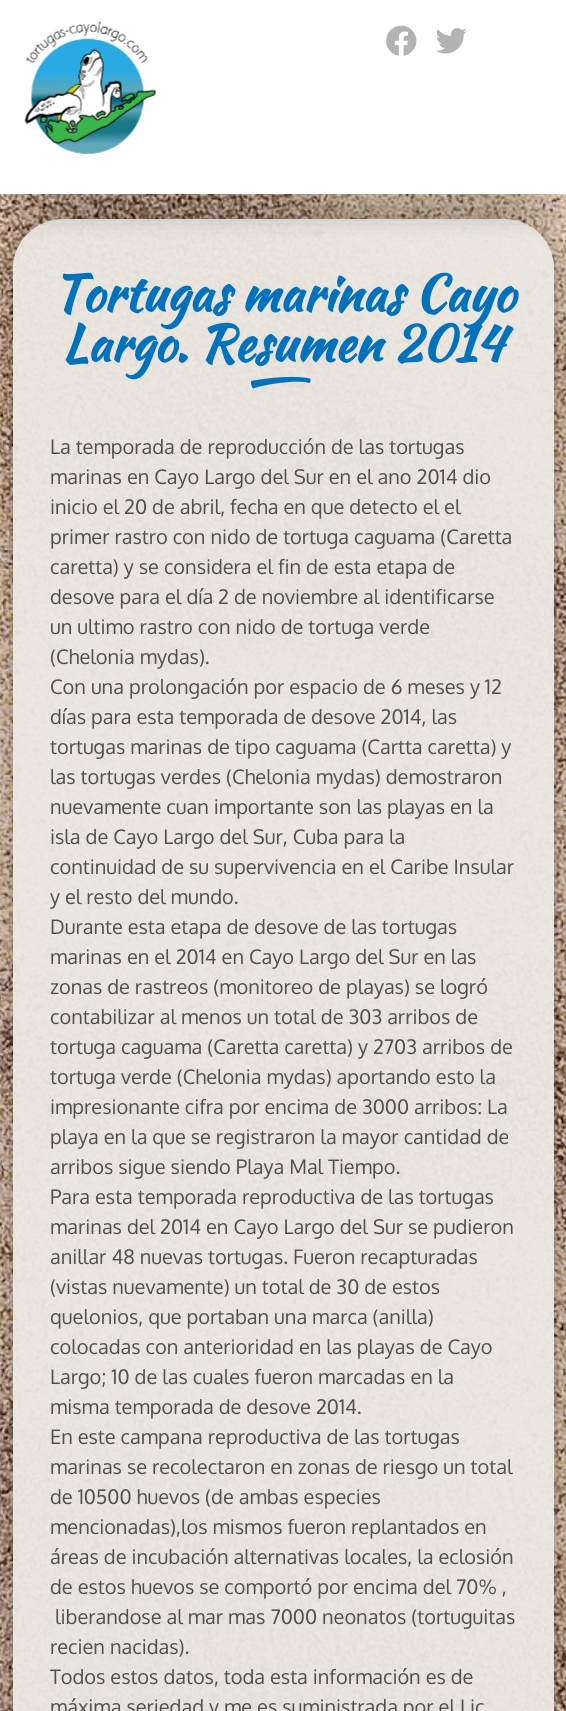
import math
import cairo

surface = cairo.ImageSurface(cairo.Format.RGB24, 566, 1711)
ctx = cairo.Context(surface)
options = cairo.FontOptions()
options.set_hint_metrics(cairo.HintMetrics.OFF)
options.set_hint_style(cairo.HintStyle.NONE)
ctx.set_font_options(options)
ctx.set_miter_limit(4)


def ink(r, g, b):
    ctx.set_source_rgb(r / 255, g / 255, b / 255)


def write(x, y, s, family, size, color, bold=False, italic=False):
    ctx.select_font_face(family, cairo.FontSlant.ITALIC if italic else cairo.FontSlant.NORMAL, cairo.FontWeight.BOLD if bold else cairo.FontWeight.NORMAL)
    ctx.set_font_size(size)
    ink(*color)
    ctx.move_to(x, y)
    ctx.show_text(s)


def block(x, y, w, h, *color):
    ink(*color)
    ctx.rectangle(x, y, w, h)
    ctx.fill()


def round_path(x, y, w, h, r):
    ctx.new_sub_path()
    for i, (u, v) in enumerate([(x + w - r, y + h - r), (x + r, y + h - r), (x + r, y + r), (x + w - r, y + r)]):
        ctx.arc(u, v, r, i * math.pi / 2, (i + 1) * math.pi / 2)
    ctx.close_path()


def blur_box(x, y, w, h, r, blur, alpha):
    ctx.push_group_with_content(cairo.Content.ALPHA)
    ctx.set_operator(cairo.Operator.SOURCE)
    for i in range(15, -16, -2):
        e = blur * i / 6
        if min(w, h) + 2 * e > 0:
            ctx.set_source_rgba(0, 0, 0, alpha * math.erfc((i - 1) / 8.5) / 2)
            round_path(x - e, y - e, w + 2 * e, h + 2 * e, max(0, min(r + e + blur * .6, min(w, h) / 2 + e)))
            ctx.fill()
    ctx.mask(ctx.pop_group())


def paste(path, x, y, w, h):
    ctx.save()
    ctx.set_source_surface(cairo.ImageSurface.create_from_png(path), x, y)
    ctx.rectangle(x, y, w, h)
    ctx.fill()
    ctx.restore()


s1 = dict(family="Kaushan Script", size=50, color=(0, 113, 187), bold=True)
s2 = dict(family="Oxygen", size=20, color=(80, 80, 80))

ink(255, 255, 255)
ctx.paint()
paste("pic1.png", 0, 194, 566, 1517)
ctx.save()
ctx.set_fill_rule(cairo.FillRule.EVEN_ODD)
ctx.new_path()
ctx.move_to(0, 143)
ctx.line_to(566, 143)
ctx.line_to(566, 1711)
ctx.line_to(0, 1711)
ctx.close_path()
ctx.move_to(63, 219)
ctx.line_to(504, 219)
ctx.curve_to(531.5, 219, 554, 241.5, 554, 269)
ctx.line_to(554, 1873)
ctx.curve_to(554, 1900.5, 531.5, 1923, 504, 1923)
ctx.line_to(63, 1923)
ctx.curve_to(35.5, 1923, 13, 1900.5, 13, 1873)
ctx.line_to(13, 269)
ctx.curve_to(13, 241.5, 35.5, 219, 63, 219)
ctx.close_path()
ctx.clip()
ink(0, 0, 0)
blur_box(13, 219, 541, 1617, 50, 25, 0.5)
ctx.restore()
ctx.set_source_rgba(0.918, 0.906, 0.886, 0.95)
round_path(13, 219, 541, 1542, 50)
ctx.fill()
ink(0, 0, 0)
blur_box(0, 25, 566, 194, 0, 12.5, 0.15)
block(0, 6, 566, 188, 255, 255, 255)
paste("pic2.png", 24, 21, 132, 134)
paste("pic3.png", 386, 25, 31, 31)
paste("pic4.png", 436, 28, 31, 26)
write(52, 311, "Tortugas marinas Cayo", **s1)
write(62, 361, "Largo. Resumen 2014", **s1)
ctx.save()
ctx.translate(305, 386)
ctx.rotate(-130 * math.pi / 180)
write(0, 0, "/", **s1)
ctx.restore()
write(50, 454, "La temporada de reproducción de las tortugas", **s2)
write(50, 484, "marinas en Cayo Largo del Sur en el ano 2014 dio", **s2)
write(50, 514, "inicio el 20 de abril, fecha en que detecto el el", **s2)
write(50, 544, "primer rastro con nido de tortuga caguama (Caretta", **s2)
write(50, 574, "caretta) y se considera el fin de esta etapa de", **s2)
write(50, 604, "desove para el día 2 de noviembre al identificarse", **s2)
write(50, 634, "un ultimo rastro con nido de tortuga verde", **s2)
write(50, 664, "(Chelonia mydas).", **s2)
write(50, 694, "Con una prolongación por espacio de 6 meses y 12", **s2)
write(50, 724, "días para esta temporada de desove 2014, las", **s2)
write(50, 754, "tortugas marinas de tipo caguama (Cartta caretta) y", **s2)
write(50, 784, "las tortugas verdes (Chelonia mydas) demostraron", **s2)
write(50, 814, "nuevamente cuan importante son las playas en la", **s2)
write(50, 844, "isla de Cayo Largo del Sur, Cuba para la", **s2)
write(50, 874, "continuidad de su supervivencia en el Caribe Insular", **s2)
write(50, 904, "y el resto del mundo.", **s2)
write(50, 934, "Durante esta etapa de desove de las tortugas", **s2)
write(50, 964, "marinas en el 2014 en Cayo Largo del Sur en las", **s2)
write(50, 994, "zonas de rastreos (monitoreo de playas) se logró", **s2)
write(50, 1024, "contabilizar al menos un total de 303 arribos de", **s2)
write(50, 1054, "tortuga caguama (Caretta caretta) y 2703 arribos de", **s2)
write(50, 1084, "tortuga verde (Chelonia mydas) aportando esto la", **s2)
write(50, 1114, "impresionante cifra por encima de 3000 arribos: La", **s2)
write(50, 1144, "playa en la que se registraron la mayor cantidad de", **s2)
write(50, 1174, "arribos sigue siendo Playa Mal Tiempo.", **s2)
write(50, 1204, "Para esta temporada reproductiva de las tortugas", **s2)
write(50, 1234, "marinas del 2014 en Cayo Largo del Sur se pudieron", **s2)
write(50, 1264, "anillar 48 nuevas tortugas. Fueron recapturadas", **s2)
write(50, 1294, "(vistas nuevamente) un total de 30 de estos", **s2)
write(50, 1324, "quelonios, que portaban una marca (anilla)", **s2)
write(50, 1354, "colocadas con anterioridad en las playas de Cayo", **s2)
write(50, 1384, "Largo; 10 de las cuales fueron marcadas en la", **s2)
write(50, 1414, "misma temporada de desove 2014.", **s2)
write(50, 1444, "En este campana reproductiva de las tortugas", **s2)
write(50, 1474, "marinas se recolectaron en zonas de riesgo un total", **s2)
write(50, 1504, "de 10500 huevos (de ambas especies", **s2)
write(50, 1534, "mencionadas),los mismos fueron replantados en", **s2)
write(50, 1564, "áreas de incubación alternativas locales, la eclosión", **s2)
write(50, 1594, "de estos huevos se comportó por encima del 70% ,", **s2)
write(55, 1624, "liberandose al mar mas 7000 neonatos (tortuguitas", **s2)
write(50, 1654, "recien nacidas).", **s2)
write(50, 1684, "Todos estos datos, toda esta información es de", **s2)
write(50, 1714, "máxima seriedad y me es suministrada por el Lic", **s2)
surface.write_to_png("screenshot.png")
